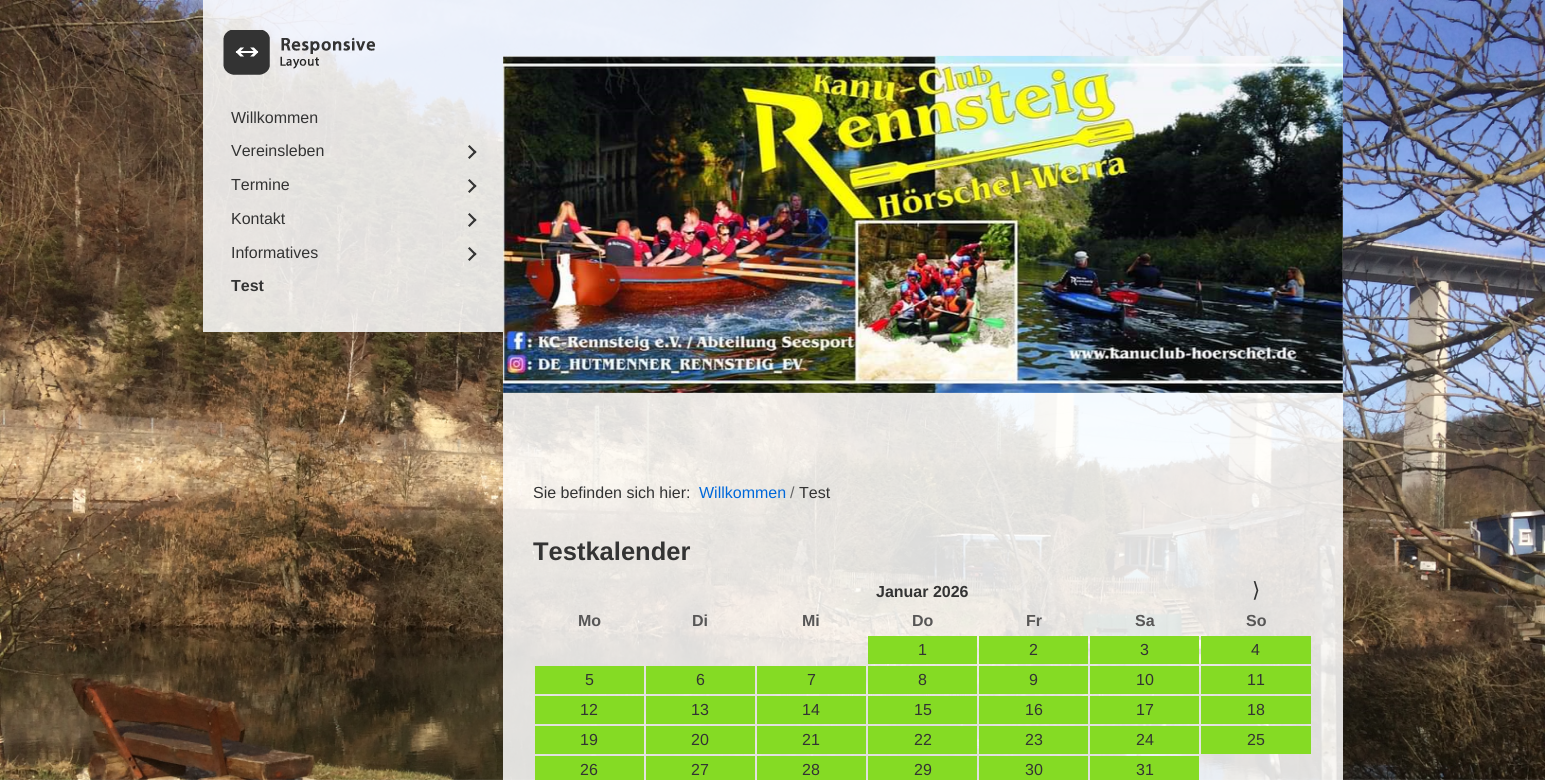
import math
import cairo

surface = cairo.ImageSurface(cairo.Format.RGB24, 1545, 780)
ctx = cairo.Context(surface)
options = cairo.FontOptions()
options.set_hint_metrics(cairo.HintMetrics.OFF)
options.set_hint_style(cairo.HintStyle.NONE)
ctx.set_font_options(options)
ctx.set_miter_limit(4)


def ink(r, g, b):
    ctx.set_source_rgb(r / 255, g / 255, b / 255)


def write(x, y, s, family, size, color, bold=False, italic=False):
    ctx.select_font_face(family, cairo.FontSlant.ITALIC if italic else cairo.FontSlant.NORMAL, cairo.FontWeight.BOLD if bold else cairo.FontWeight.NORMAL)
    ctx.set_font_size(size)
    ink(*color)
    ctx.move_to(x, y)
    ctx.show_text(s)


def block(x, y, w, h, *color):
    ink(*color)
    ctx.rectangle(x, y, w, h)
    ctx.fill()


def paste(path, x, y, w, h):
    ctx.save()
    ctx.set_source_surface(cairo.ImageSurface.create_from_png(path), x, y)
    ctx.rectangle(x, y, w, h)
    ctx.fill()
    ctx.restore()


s1 = dict(family="Liberation Sans", size=16, color=(51, 51, 51))
s2 = dict(family="Liberation Sans", size=16, color=(51, 51, 51), bold=True)
s3 = dict(family="Liberation Sans", size=16, color=(0, 104, 218))
s4 = dict(family="Liberation Sans", size=16, color=(102, 102, 102))
s5 = dict(family="Liberation Sans", size=25.5, color=(51, 51, 51), bold=True)
s6 = dict(family="DejaVu Sans", size=21, color=(51, 51, 51))
s7 = dict(family="Liberation Sans", size=16, color=(87, 86, 86), bold=True)

ink(255, 255, 255)
ctx.paint()
paste("pic1.png", 0, 0, 1545, 780)
ctx.set_source_rgba(1, 1, 1, 0.85)
ctx.rectangle(203, 0, 300, 332)
ctx.fill()
paste("pic2.png", 223, 30, 152, 45)
write(231, 123, "Willkommen", **s1)
write(231, 156, "Vereinsleben", **s1)
ctx.new_path()
ctx.move_to(469.5, 145)
ctx.line_to(476.5, 152)
ctx.line_to(475, 153.5)
ctx.line_to(468, 146.5)
ctx.close_path()
ctx.fill()
ctx.new_path()
ctx.move_to(475, 150.5)
ctx.line_to(476.5, 152)
ctx.line_to(469.5, 159)
ctx.line_to(468, 157.5)
ctx.close_path()
ctx.fill()
write(231, 190, "Termine", **s1)
ctx.new_path()
ctx.move_to(469.5, 179)
ctx.line_to(476.5, 186)
ctx.line_to(475, 187.5)
ctx.line_to(468, 180.5)
ctx.close_path()
ctx.fill()
ctx.new_path()
ctx.move_to(475, 184.5)
ctx.line_to(476.5, 186)
ctx.line_to(469.5, 193)
ctx.line_to(468, 191.5)
ctx.close_path()
ctx.fill()
write(231, 224, "Kontakt", **s1)
ctx.new_path()
ctx.move_to(469.5, 213)
ctx.line_to(476.5, 220)
ctx.line_to(475, 221.5)
ctx.line_to(468, 214.5)
ctx.close_path()
ctx.fill()
ctx.new_path()
ctx.move_to(475, 218.5)
ctx.line_to(476.5, 220)
ctx.line_to(469.5, 227)
ctx.line_to(468, 225.5)
ctx.close_path()
ctx.fill()
write(231, 258, "Informatives", **s1)
ctx.new_path()
ctx.move_to(469.5, 247)
ctx.line_to(476.5, 254)
ctx.line_to(475, 255.5)
ctx.line_to(468, 248.5)
ctx.close_path()
ctx.fill()
ctx.new_path()
ctx.move_to(475, 252.5)
ctx.line_to(476.5, 254)
ctx.line_to(469.5, 261)
ctx.line_to(468, 259.5)
ctx.close_path()
ctx.fill()
write(231, 291, "Test", **s2)
ctx.set_source_rgba(1, 1, 1, 0.85)
ctx.rectangle(503, 0, 840, 451)
ctx.fill()
paste("pic3.png", 503, 55, 840, 338)
ctx.rectangle(503, 451, 840, 329)
ctx.fill()
write(533, 498, "Sie befinden sich hier:", **s1)
write(699, 498, "Willkommen", **s3)
write(790, 498, "/", **s4)
write(799, 498, "Test", **s1)
write(533, 560, "Testkalender", **s5)
write(876, 597, "Januar 2026", **s2)
write(1252, 597, "⟩", **s6)
write(578, 626, "Mo", **s7)
write(692, 626, "Di", **s7)
write(802, 626, "Mi", **s7)
write(912, 626, "Do", **s7)
write(1026, 626, "Fr", **s7)
write(1135, 626, "Sa", **s7)
write(1246, 626, "So", **s7)
block(868, 636, 109, 28, 133, 219, 36)
write(918, 655, "1", **s1)
block(979, 636, 109, 28, 133, 219, 36)
write(1029, 655, "2", **s1)
block(1090, 636, 109, 28, 133, 219, 36)
write(1140, 655, "3", **s1)
block(1201, 636, 110, 28, 133, 219, 36)
write(1251, 655, "4", **s1)
block(535, 666, 109, 28, 133, 219, 36)
write(585, 685, "5", **s1)
block(646, 666, 109, 28, 133, 219, 36)
write(696, 685, "6", **s1)
block(757, 666, 109, 28, 133, 219, 36)
write(807, 685, "7", **s1)
block(868, 666, 109, 28, 133, 219, 36)
write(918, 685, "8", **s1)
block(979, 666, 109, 28, 133, 219, 36)
write(1029, 685, "9", **s1)
block(1090, 666, 109, 28, 133, 219, 36)
write(1136, 685, "10", **s1)
block(1201, 666, 110, 28, 133, 219, 36)
write(1247, 685, "11", **s1)
block(535, 696, 109, 28, 133, 219, 36)
write(580, 715, "12", **s1)
block(646, 696, 109, 28, 133, 219, 36)
write(691, 715, "13", **s1)
block(757, 696, 109, 28, 133, 219, 36)
write(802, 715, "14", **s1)
block(868, 696, 109, 28, 133, 219, 36)
write(914, 715, "15", **s1)
block(979, 696, 109, 28, 133, 219, 36)
write(1025, 715, "16", **s1)
block(1090, 696, 109, 28, 133, 219, 36)
write(1136, 715, "17", **s1)
block(1201, 696, 110, 28, 133, 219, 36)
write(1247, 715, "18", **s1)
block(535, 726, 109, 28, 133, 219, 36)
write(580, 745, "19", **s1)
block(646, 726, 109, 28, 133, 219, 36)
write(691, 745, "20", **s1)
block(757, 726, 109, 28, 133, 219, 36)
write(802, 745, "21", **s1)
block(868, 726, 109, 28, 133, 219, 36)
write(914, 745, "22", **s1)
block(979, 726, 109, 28, 133, 219, 36)
write(1025, 745, "23", **s1)
block(1090, 726, 109, 28, 133, 219, 36)
write(1136, 745, "24", **s1)
block(1201, 726, 110, 28, 133, 219, 36)
write(1247, 745, "25", **s1)
block(535, 756, 109, 24, 133, 219, 36)
write(580, 775, "26", **s1)
block(646, 756, 109, 24, 133, 219, 36)
write(691, 775, "27", **s1)
block(757, 756, 109, 24, 133, 219, 36)
write(802, 775, "28", **s1)
block(868, 756, 109, 24, 133, 219, 36)
write(914, 775, "29", **s1)
block(979, 756, 109, 24, 133, 219, 36)
write(1025, 775, "30", **s1)
block(1090, 756, 109, 24, 133, 219, 36)
write(1136, 775, "31", **s1)
surface.write_to_png("screenshot.png")
